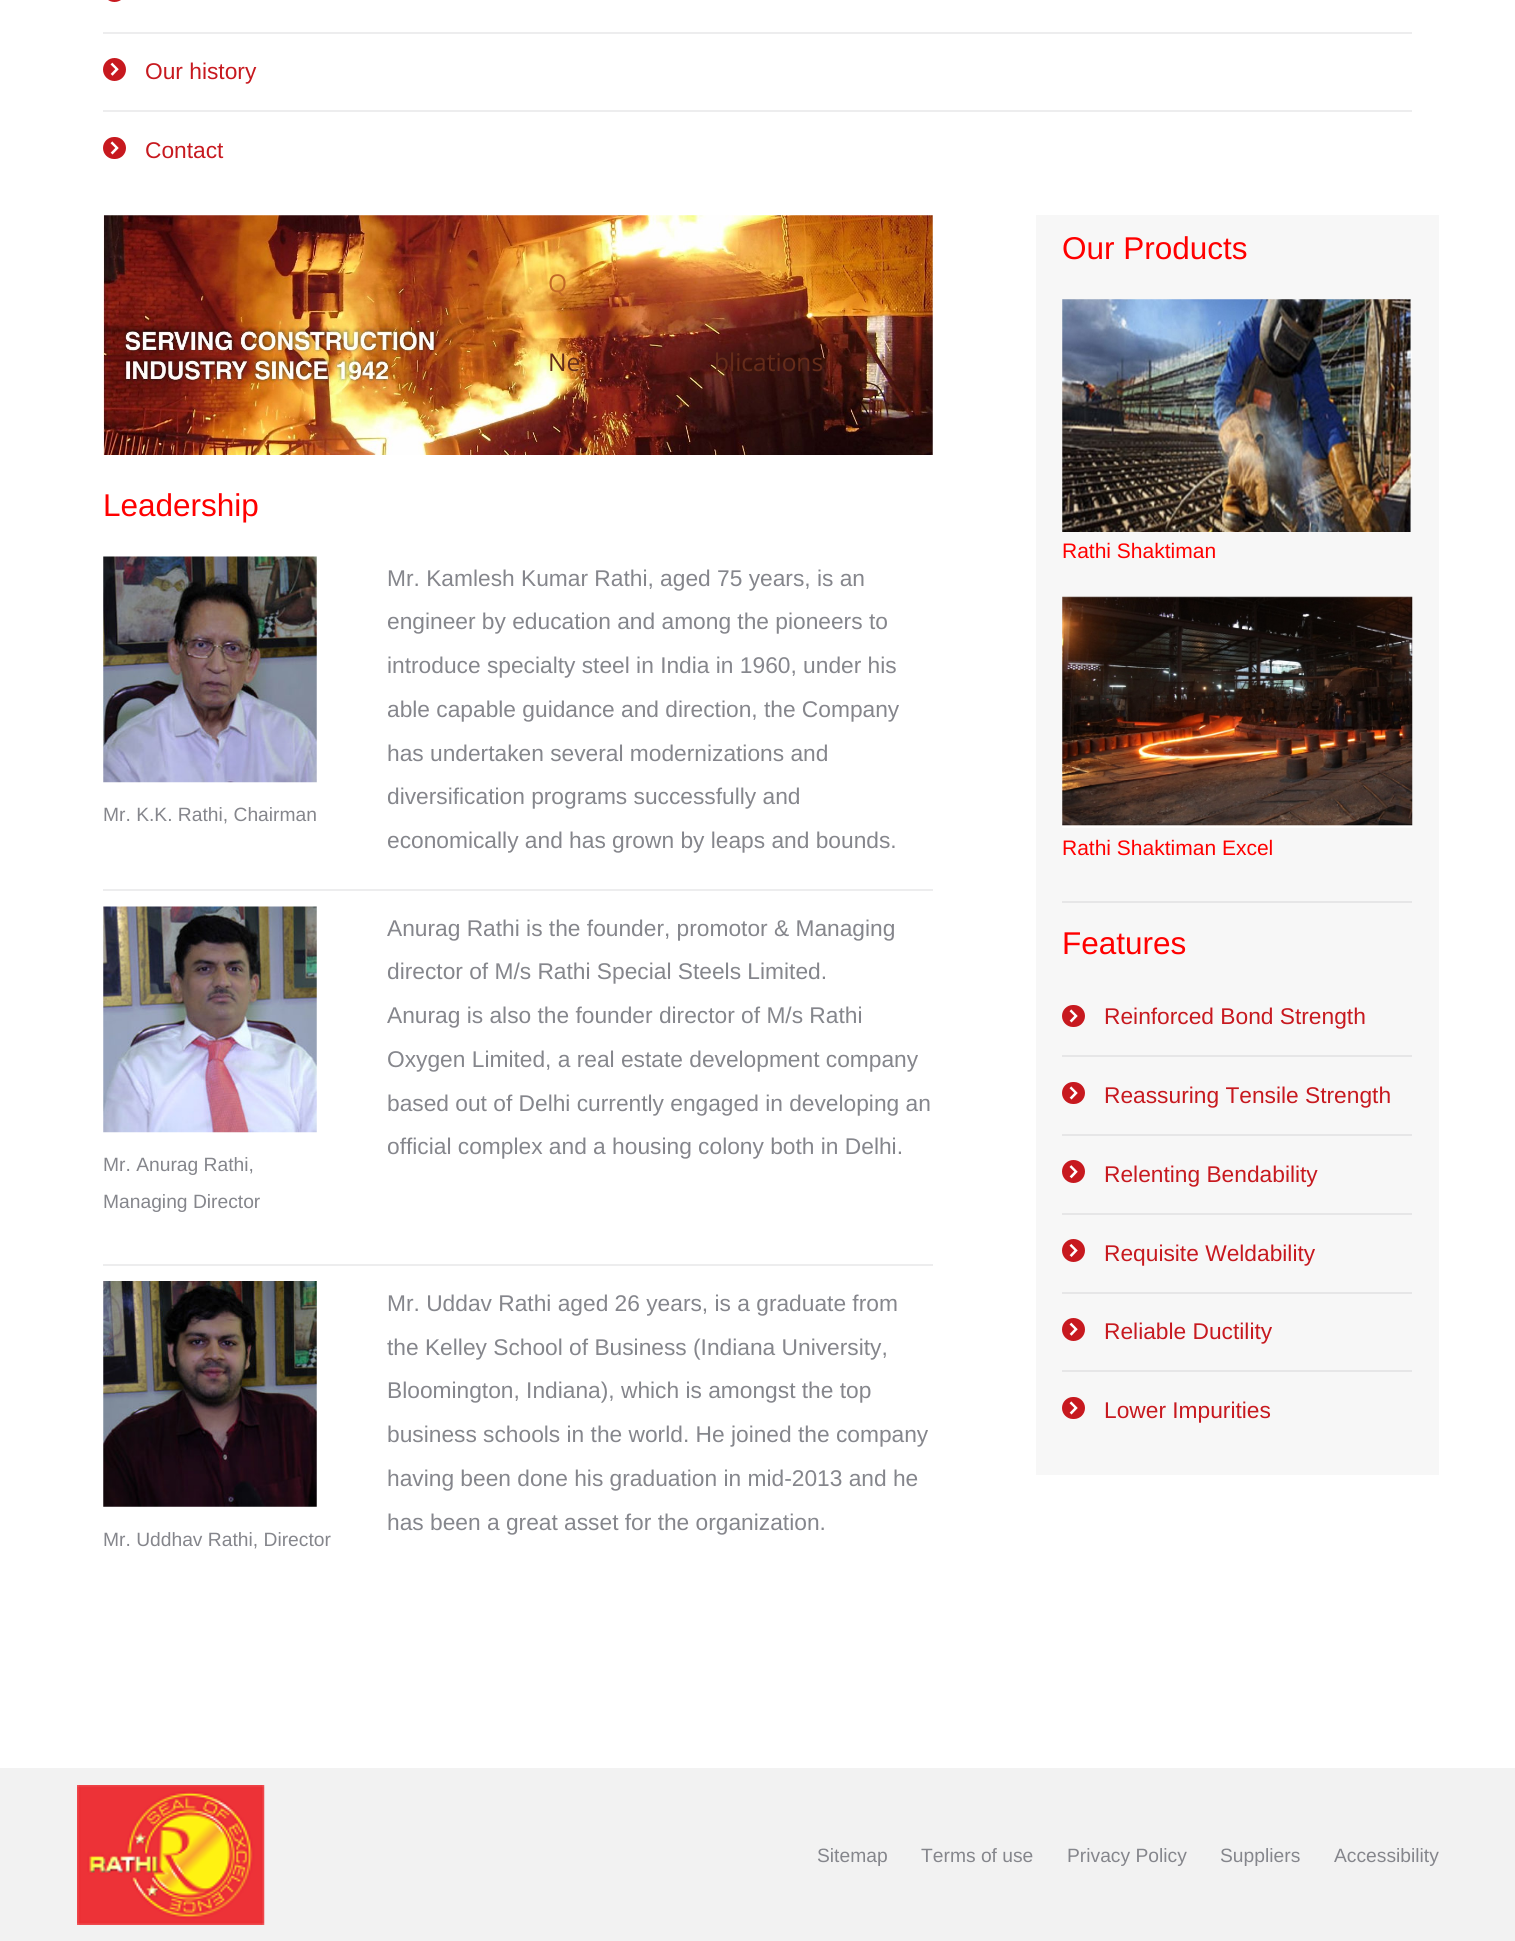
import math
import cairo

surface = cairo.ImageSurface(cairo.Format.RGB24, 1515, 1941)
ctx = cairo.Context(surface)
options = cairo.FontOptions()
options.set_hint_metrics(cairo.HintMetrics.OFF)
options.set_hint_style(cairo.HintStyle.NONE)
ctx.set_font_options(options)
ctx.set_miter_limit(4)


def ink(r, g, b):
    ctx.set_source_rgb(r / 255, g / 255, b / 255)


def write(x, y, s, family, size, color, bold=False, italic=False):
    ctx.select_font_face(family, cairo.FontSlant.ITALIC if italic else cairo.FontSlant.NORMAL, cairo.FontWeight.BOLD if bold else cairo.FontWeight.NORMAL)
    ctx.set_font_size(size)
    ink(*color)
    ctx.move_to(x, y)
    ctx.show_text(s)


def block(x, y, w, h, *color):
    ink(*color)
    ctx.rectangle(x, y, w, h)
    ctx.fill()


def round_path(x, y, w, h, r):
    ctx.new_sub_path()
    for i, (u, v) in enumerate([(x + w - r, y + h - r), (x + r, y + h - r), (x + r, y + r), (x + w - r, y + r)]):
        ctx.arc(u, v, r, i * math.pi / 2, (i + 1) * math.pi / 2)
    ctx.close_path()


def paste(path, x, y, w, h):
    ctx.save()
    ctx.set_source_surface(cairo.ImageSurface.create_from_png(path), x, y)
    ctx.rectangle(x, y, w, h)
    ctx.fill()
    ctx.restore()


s1 = dict(family="Liberation Sans", size=22.75, color=(199, 25, 31))
s2 = dict(family="Liberation Sans", size=31.5, color=(255, 0, 0))
s3 = dict(family="Liberation Sans", size=19.25, color=(133, 134, 140))
s4 = dict(family="Liberation Sans", size=22.75, color=(133, 134, 140))
s5 = dict(family="Liberation Sans", size=21, color=(255, 0, 0))
s6 = dict(family="Open Sans", size=24.5, color=(195, 104, 38))
s7 = dict(family="Open Sans", size=24.5, color=(101, 44, 26))

ink(255, 255, 255)
ctx.paint()
ink(199, 25, 31)
round_path(103, -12, 23, 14, 11.5)
ctx.fill()
block(103, 32, 1309, 2, 237, 237, 238)
ink(199, 25, 31)
ctx.arc(114.5, 69.5, 11.5, 0, 2 * math.pi)
ctx.fill()
paste("pic1.png", 110, 62, 9, 14)
write(145, 79, "Our history", **s1)
block(103, 110, 1309, 2, 237, 237, 238)
ink(199, 25, 31)
round_path(103, 137, 23, 22, 11)
ctx.fill()
paste("pic2.png", 110, 141, 9, 14)
write(145, 158, "Contact", **s1)
paste("pic3.png", 103, 215, 830, 240)
write(103, 516, "Leadership", **s2)
paste("pic4.png", 103, 556, 214, 227)
write(103, 821, "Mr. K.K. Rathi, Chairman", **s3)
write(387, 586, "Mr. Kamlesh Kumar Rathi, aged 75 years, is an", **s4)
write(387, 629, "engineer by education and among the pioneers to", **s4)
write(387, 673, "introduce specialty steel in India in 1960, under his", **s4)
write(387, 717, "able capable guidance and direction, the Company", **s4)
write(387, 761, "has undertaken several modernizations and", **s4)
write(387, 804, "diversification programs successfully and", **s4)
write(387, 848, "economically and has grown by leaps and bounds.", **s4)
block(103, 889, 830, 2, 237, 237, 238)
write(387, 936, "Anurag Rathi is the founder, promotor & Managing", **s4)
write(387, 979, "director of M/s Rathi Special Steels Limited.", **s4)
write(387, 1023, "Anurag is also the founder director of M/s Rathi", **s4)
write(387, 1067, "Oxygen Limited, a real estate development company", **s4)
write(387, 1111, "based out of Delhi currently engaged in developing an", **s4)
write(387, 1154, "official complex and a housing colony both in Delhi.", **s4)
paste("pic5.png", 103, 906, 214, 227)
write(103, 1171, "Mr. Anurag Rathi,", **s3)
write(103, 1208, "Managing Director", **s3)
block(103, 1264, 830, 2, 237, 237, 238)
write(387, 1311, "Mr. Uddav Rathi aged 26 years, is a graduate from", **s4)
write(387, 1355, "the Kelley School of Business (Indiana University,", **s4)
write(387, 1398, "Bloomington, Indiana), which is amongst the top", **s4)
write(387, 1442, "business schools in the world. He joined the company", **s4)
write(387, 1486, "having been done his graduation in mid-2013 and he", **s4)
write(387, 1530, "has been a great asset for the organization.", **s4)
paste("pic6.png", 103, 1281, 214, 226)
write(103, 1546, "Mr. Uddhav Rathi, Director", **s3)
block(1036, 215, 403, 1260, 247, 247, 247)
write(1062, 259, "Our Products", **s2)
paste("pic7.png", 1062, 299, 350, 233)
write(1062, 558, "Rathi Shaktiman", **s5)
paste("pic8.png", 1062, 596, 351, 232)
write(1062, 855, "Rathi Shaktiman Excel", **s5)
block(1062, 901, 350, 2, 230, 230, 231)
write(1062, 954, "Features", **s2)
ink(199, 25, 31)
round_path(1062, 1005, 23, 22, 11)
ctx.fill()
write(1104, 1024, "Reinforced Bond Strength", **s1)
paste("pic2.png", 1069, 1009, 9, 14)
block(1062, 1055, 350, 2, 230, 230, 231)
ink(199, 25, 31)
round_path(1062, 1082, 23, 22, 11)
ctx.fill()
paste("pic2.png", 1069, 1086, 9, 14)
write(1104, 1103, "Reassuring Tensile Strength", **s1)
block(1062, 1134, 350, 2, 230, 230, 231)
ink(199, 25, 31)
ctx.new_path()
ctx.arc(1073.5, 1171.5, 11.5, 0, 2 * math.pi)
ctx.fill()
paste("pic9.png", 1069, 1165, 9, 14)
write(1104, 1182, "Relenting Bendability", **s1)
block(1062, 1213, 350, 2, 230, 230, 231)
ink(199, 25, 31)
ctx.new_path()
ctx.arc(1073.5, 1250.5, 11.5, 0, 2 * math.pi)
ctx.fill()
paste("pic10.png", 1069, 1244, 9, 13)
write(1104, 1261, "Requisite Weldability", **s1)
block(1062, 1292, 350, 2, 230, 230, 231)
ink(199, 25, 31)
ctx.new_path()
ctx.arc(1073.5, 1329.5, 11.5, 0, 2 * math.pi)
ctx.fill()
paste("pic1.png", 1069, 1322, 9, 14)
write(1104, 1339, "Reliable Ductility", **s1)
block(1062, 1370, 350, 2, 230, 230, 231)
ink(199, 25, 31)
round_path(1062, 1397, 23, 22, 11)
ctx.fill()
paste("pic2.png", 1069, 1401, 9, 14)
write(1104, 1418, "Lower Impurities", **s1)
write(548, 292, "Q", **s6)
write(548, 371, "Ne", **s7)
write(714, 371, "blications", **s7)
block(0, 1768, 1515, 173, 242, 242, 242)
paste("pic11.png", 77, 1785, 188, 140)
write(817, 1862, "Sitemap", **s3)
write(921, 1862, "Terms of use", **s3)
write(1067, 1862, "Privacy Policy", **s3)
write(1220, 1862, "Suppliers", **s3)
write(1334, 1862, "Accessibility", **s3)
surface.write_to_png("screenshot.png")
